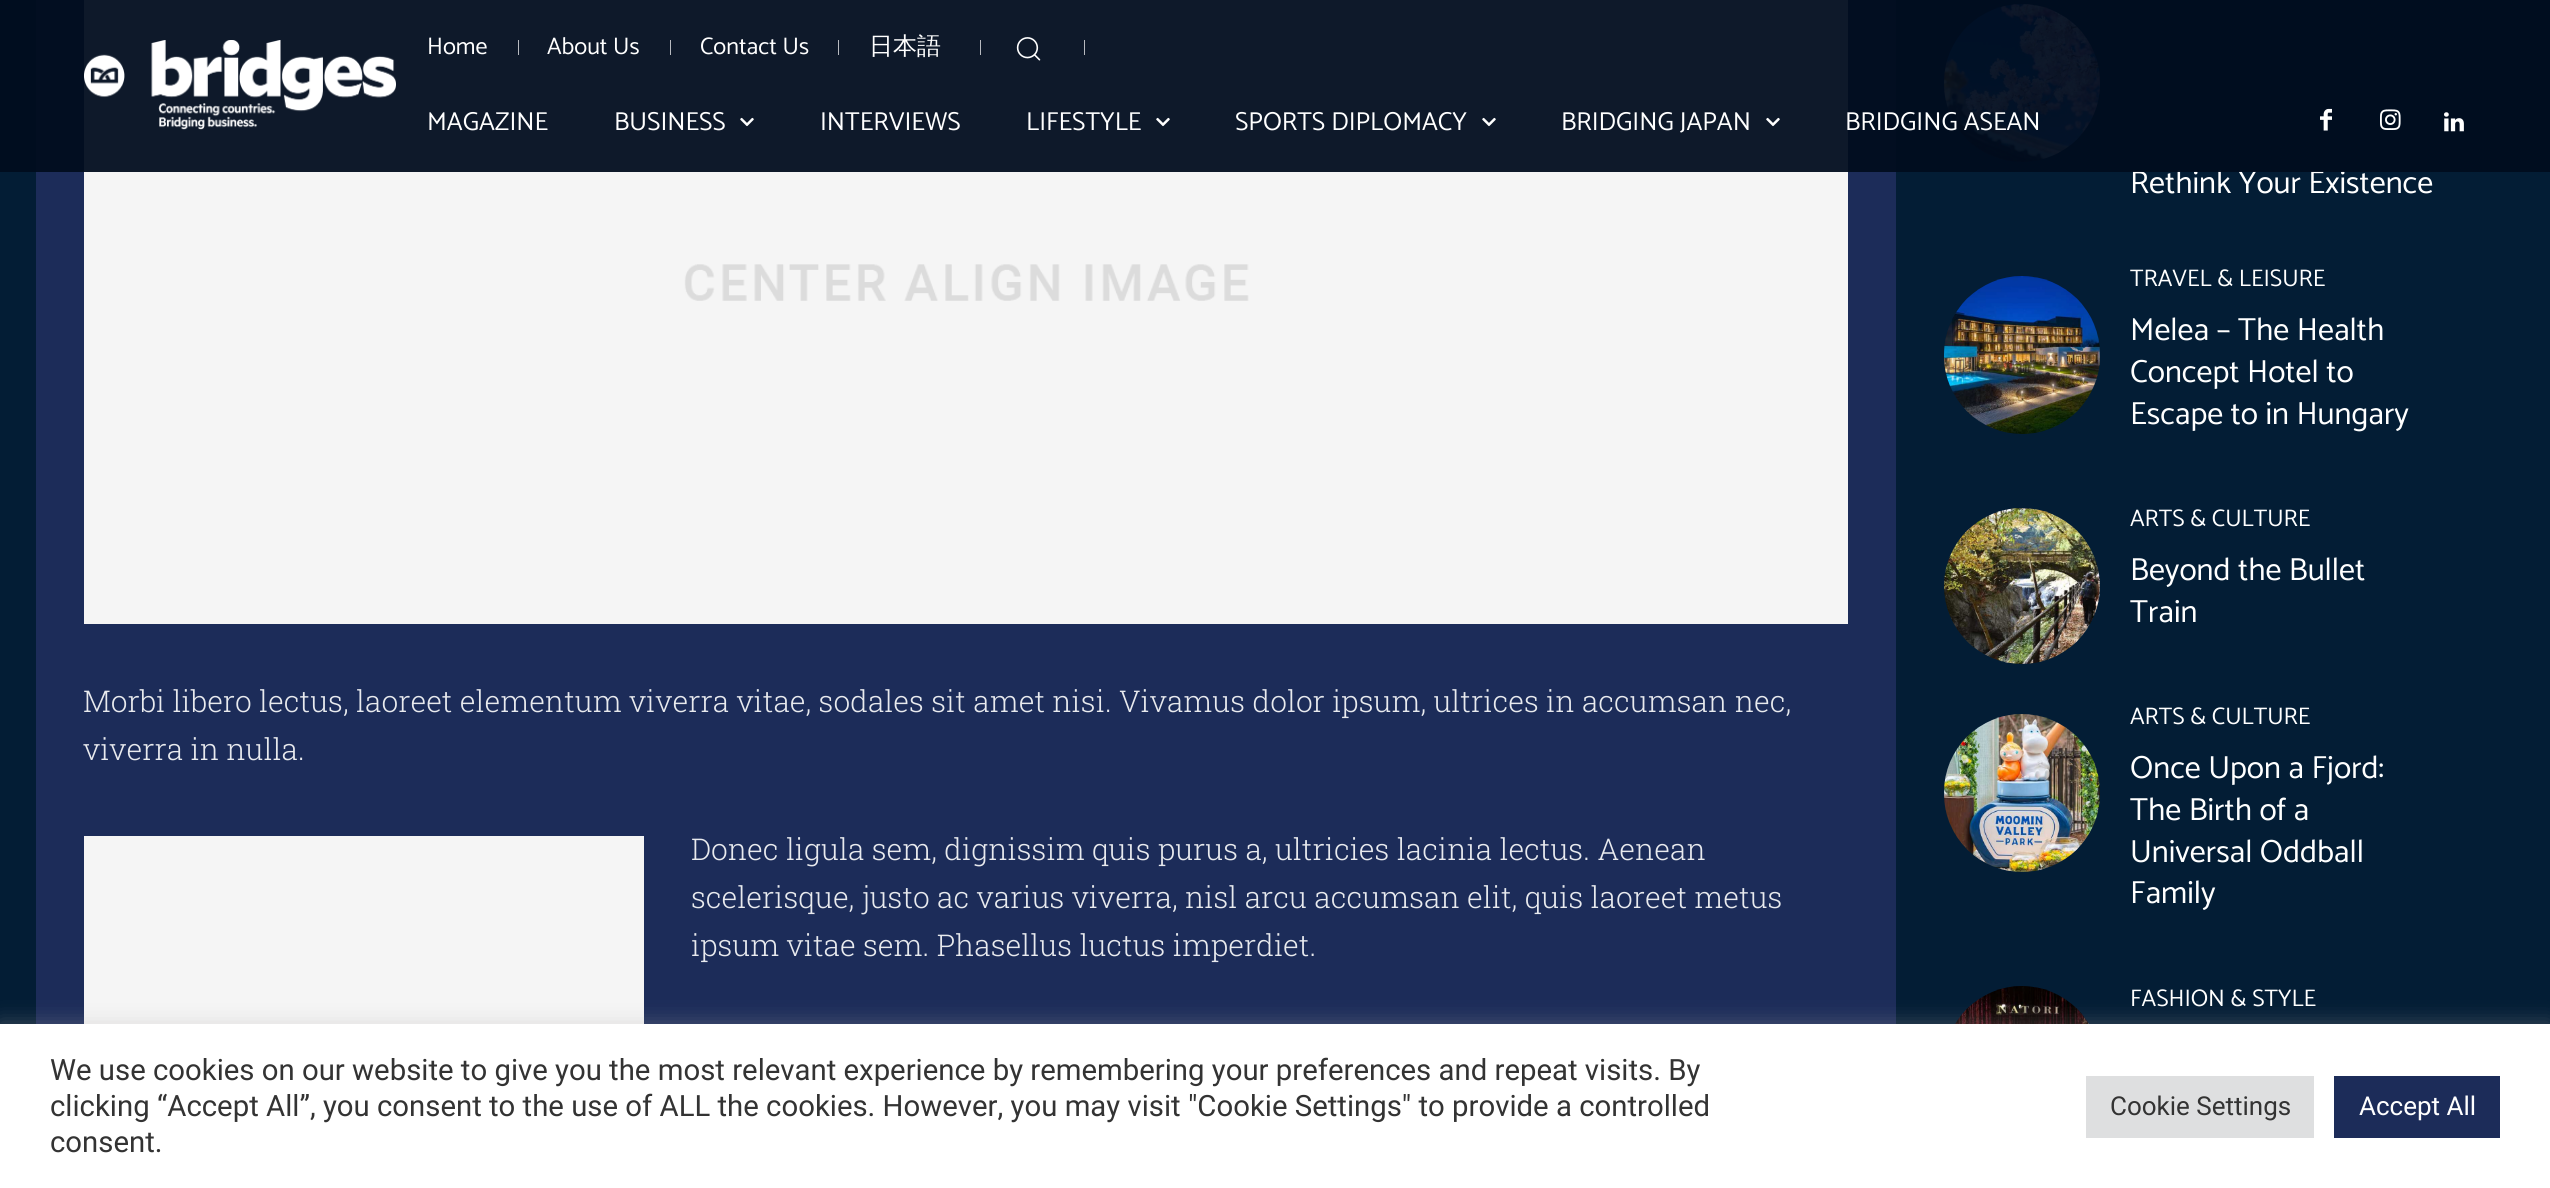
import math
import cairo

surface = cairo.ImageSurface(cairo.Format.RGB24, 2550, 1188)
ctx = cairo.Context(surface)
options = cairo.FontOptions()
options.set_hint_metrics(cairo.HintMetrics.OFF)
options.set_hint_style(cairo.HintStyle.NONE)
ctx.set_font_options(options)
ctx.set_miter_limit(4)


def ink(r, g, b):
    ctx.set_source_rgb(r / 255, g / 255, b / 255)


def write(x, y, s, family, size, color, bold=False, italic=False):
    ctx.select_font_face(family, cairo.FontSlant.ITALIC if italic else cairo.FontSlant.NORMAL, cairo.FontWeight.BOLD if bold else cairo.FontWeight.NORMAL)
    ctx.set_font_size(size)
    ink(*color)
    ctx.move_to(x, y)
    ctx.show_text(s)


def block(x, y, w, h, *color):
    ink(*color)
    ctx.rectangle(x, y, w, h)
    ctx.fill()


def round_path(x, y, w, h, r):
    ctx.new_sub_path()
    for i, (u, v) in enumerate([(x + w - r, y + h - r), (x + r, y + h - r), (x + r, y + r), (x + w - r, y + r)]):
        ctx.arc(u, v, r, i * math.pi / 2, (i + 1) * math.pi / 2)
    ctx.close_path()


def blur_box(x, y, w, h, r, blur, alpha):
    ctx.push_group_with_content(cairo.Content.ALPHA)
    ctx.set_operator(cairo.Operator.SOURCE)
    for i in range(15, -16, -2):
        e = blur * i / 6
        if min(w, h) + 2 * e > 0:
            ctx.set_source_rgba(0, 0, 0, alpha * math.erfc((i - 1) / 8.5) / 2)
            round_path(x - e, y - e, w + 2 * e, h + 2 * e, max(0, min(r + e + blur * .6, min(w, h) / 2 + e)))
            ctx.fill()
    ctx.mask(ctx.pop_group())


def paste(path, x, y, w, h):
    ctx.save()
    ctx.set_source_surface(cairo.ImageSurface.create_from_png(path), x, y)
    ctx.rectangle(x, y, w, h)
    ctx.fill()
    ctx.restore()


s1 = dict(family="Catamaran", size=32, color=(255, 255, 255))
s2 = dict(family="Catamaran", size=24, color=(255, 255, 255))
s3 = dict(family="WenQuanYi Zen Hei Medium", size=24, color=(255, 255, 255))
s4 = dict(family="Catamaran", size=26, color=(255, 255, 255))
s5 = dict(family="Roboto Slab Light", size=30, color=(232, 234, 238))
s6 = dict(family="Roboto", size=29.33, color=(51, 51, 51))
s7 = dict(family="Roboto", size=26, color=(51, 51, 51))
s8 = dict(family="Roboto", size=26, color=(255, 255, 255))

ink(255, 255, 255)
ctx.paint()
gradient = cairo.LinearGradient(2550, 703, 0, 703)
gradient.add_color_stop_rgba(0, 0, 0.11, 0.247, 1)
gradient.add_color_stop_rgba(1, 0.012, 0.114, 0.208, 1)
ctx.set_source(gradient)
ctx.rectangle(0, 0, 2, 1024)
ctx.fill()
block(2, 0, 2548, 1024, 3, 29, 53)
block(36, 0, 1860, 1024, 28, 44, 89)
paste("pic7.png", 84, 0, 1764, 624)
paste("pic9.png", 1944, 4, 156, 158)
write(2130, 193, "Rethink Your Existence", **s1)
ctx.set_source_rgba(0, 0.047, 0.118, 0.94)
ctx.rectangle(0, 0, 2550, 172)
ctx.fill()
paste("pic1.png", 84, 40, 312, 90)
write(427, 54, "Home", **s2)
block(518, 40, 1, 15, 183, 186, 191)
write(547, 54, "About Us", **s2)
block(670, 40, 1, 15, 183, 186, 191)
write(700, 54, "Contact Us", **s2)
block(838, 40, 1, 15, 183, 186, 191)
write(869, 54, "日本語", **s3)
block(980, 40, 1, 15, 183, 186, 191)
paste("pic2.png", 1016, 37, 25, 24)
block(1084, 40, 1, 15, 183, 186, 191)
write(427, 130, "MAGAZINE", **s4)
write(614, 130, "BUSINESS", **s4)
paste("pic3.png", 740, 117, 14, 10)
write(820, 130, "INTERVIEWS", **s4)
write(1026, 130, "LIFESTYLE", **s4)
paste("pic3.png", 1156, 117, 14, 10)
write(1235, 130, "SPORTS DIPLOMACY", **s4)
paste("pic3.png", 1482, 117, 14, 10)
write(1561, 130, "BRIDGING JAPAN", **s4)
paste("pic3.png", 1766, 117, 14, 10)
write(1845, 130, "BRIDGING ASEAN", **s4)
paste("pic4.png", 2320, 108, 12, 23)
paste("pic5.png", 2380, 109, 21, 21)
paste("pic6.png", 2444, 112, 20, 20)
write(83, 712, "Morbi libero lectus, laoreet elementum viverra vitae, sodales sit amet nisi. Vivamus dolor ipsum, ultrices in accumsan nec,", **s5)
write(83, 760, "viverra in nulla.", **s5)
paste("pic8.png", 84, 836, 560, 188)
write(691, 860, "Donec ligula sem, dignissim quis purus a, ultricies lacinia lectus. Aenean", **s5)
write(691, 908, "scelerisque, justo ac varius viverra, nisl arcu accumsan elit, quis laoreet metus", **s5)
write(691, 956, "ipsum vitae sem. Phasellus luctus imperdiet.", **s5)
paste("pic10.png", 1944, 276, 156, 158)
write(2130, 286, "TRAVEL & LEISURE", **s2)
write(2130, 340, "Melea – The Health", **s1)
write(2130, 382, "Concept Hotel to", **s1)
write(2130, 424, "Escape to in Hungary", **s1)
paste("pic11.png", 1944, 508, 156, 156)
write(2130, 526, "ARTS & CULTURE", **s2)
write(2130, 580, "Beyond the Bullet", **s1)
write(2130, 622, "Train", **s1)
paste("pic12.png", 1944, 714, 156, 158)
write(2130, 724, "ARTS & CULTURE", **s2)
write(2130, 778, "Once Upon a Fjord:", **s1)
write(2130, 820, "The Birth of a", **s1)
write(2130, 862, "Universal Oddball", **s1)
write(2130, 903, "Family", **s1)
paste("pic13.png", 1955, 986, 134, 38)
write(2130, 1006, "FASHION & STYLE", **s2)
ink(172, 171, 171)
blur_box(0, 1022, 2550, 164, 0, 10, 0.3)
block(0, 1024, 2550, 164, 255, 255, 255)
write(50, 1080, "We use cookies on our website to give you the most relevant experience by remembering your preferences and repeat visits. By", **s6)
write(50, 1116, "clicking “Accept All”, you consent to the use of ALL the cookies. However, you may visit \"Cookie Settings\" to provide a controlled", **s6)
write(50, 1152, "consent.", **s6)
block(2086, 1076, 228, 62, 222, 223, 224)
write(2110, 1115, "Cookie Settings", **s7)
block(2334, 1076, 166, 62, 28, 44, 89)
write(2359, 1115, "Accept All", **s8)
surface.write_to_png("screenshot.png")
